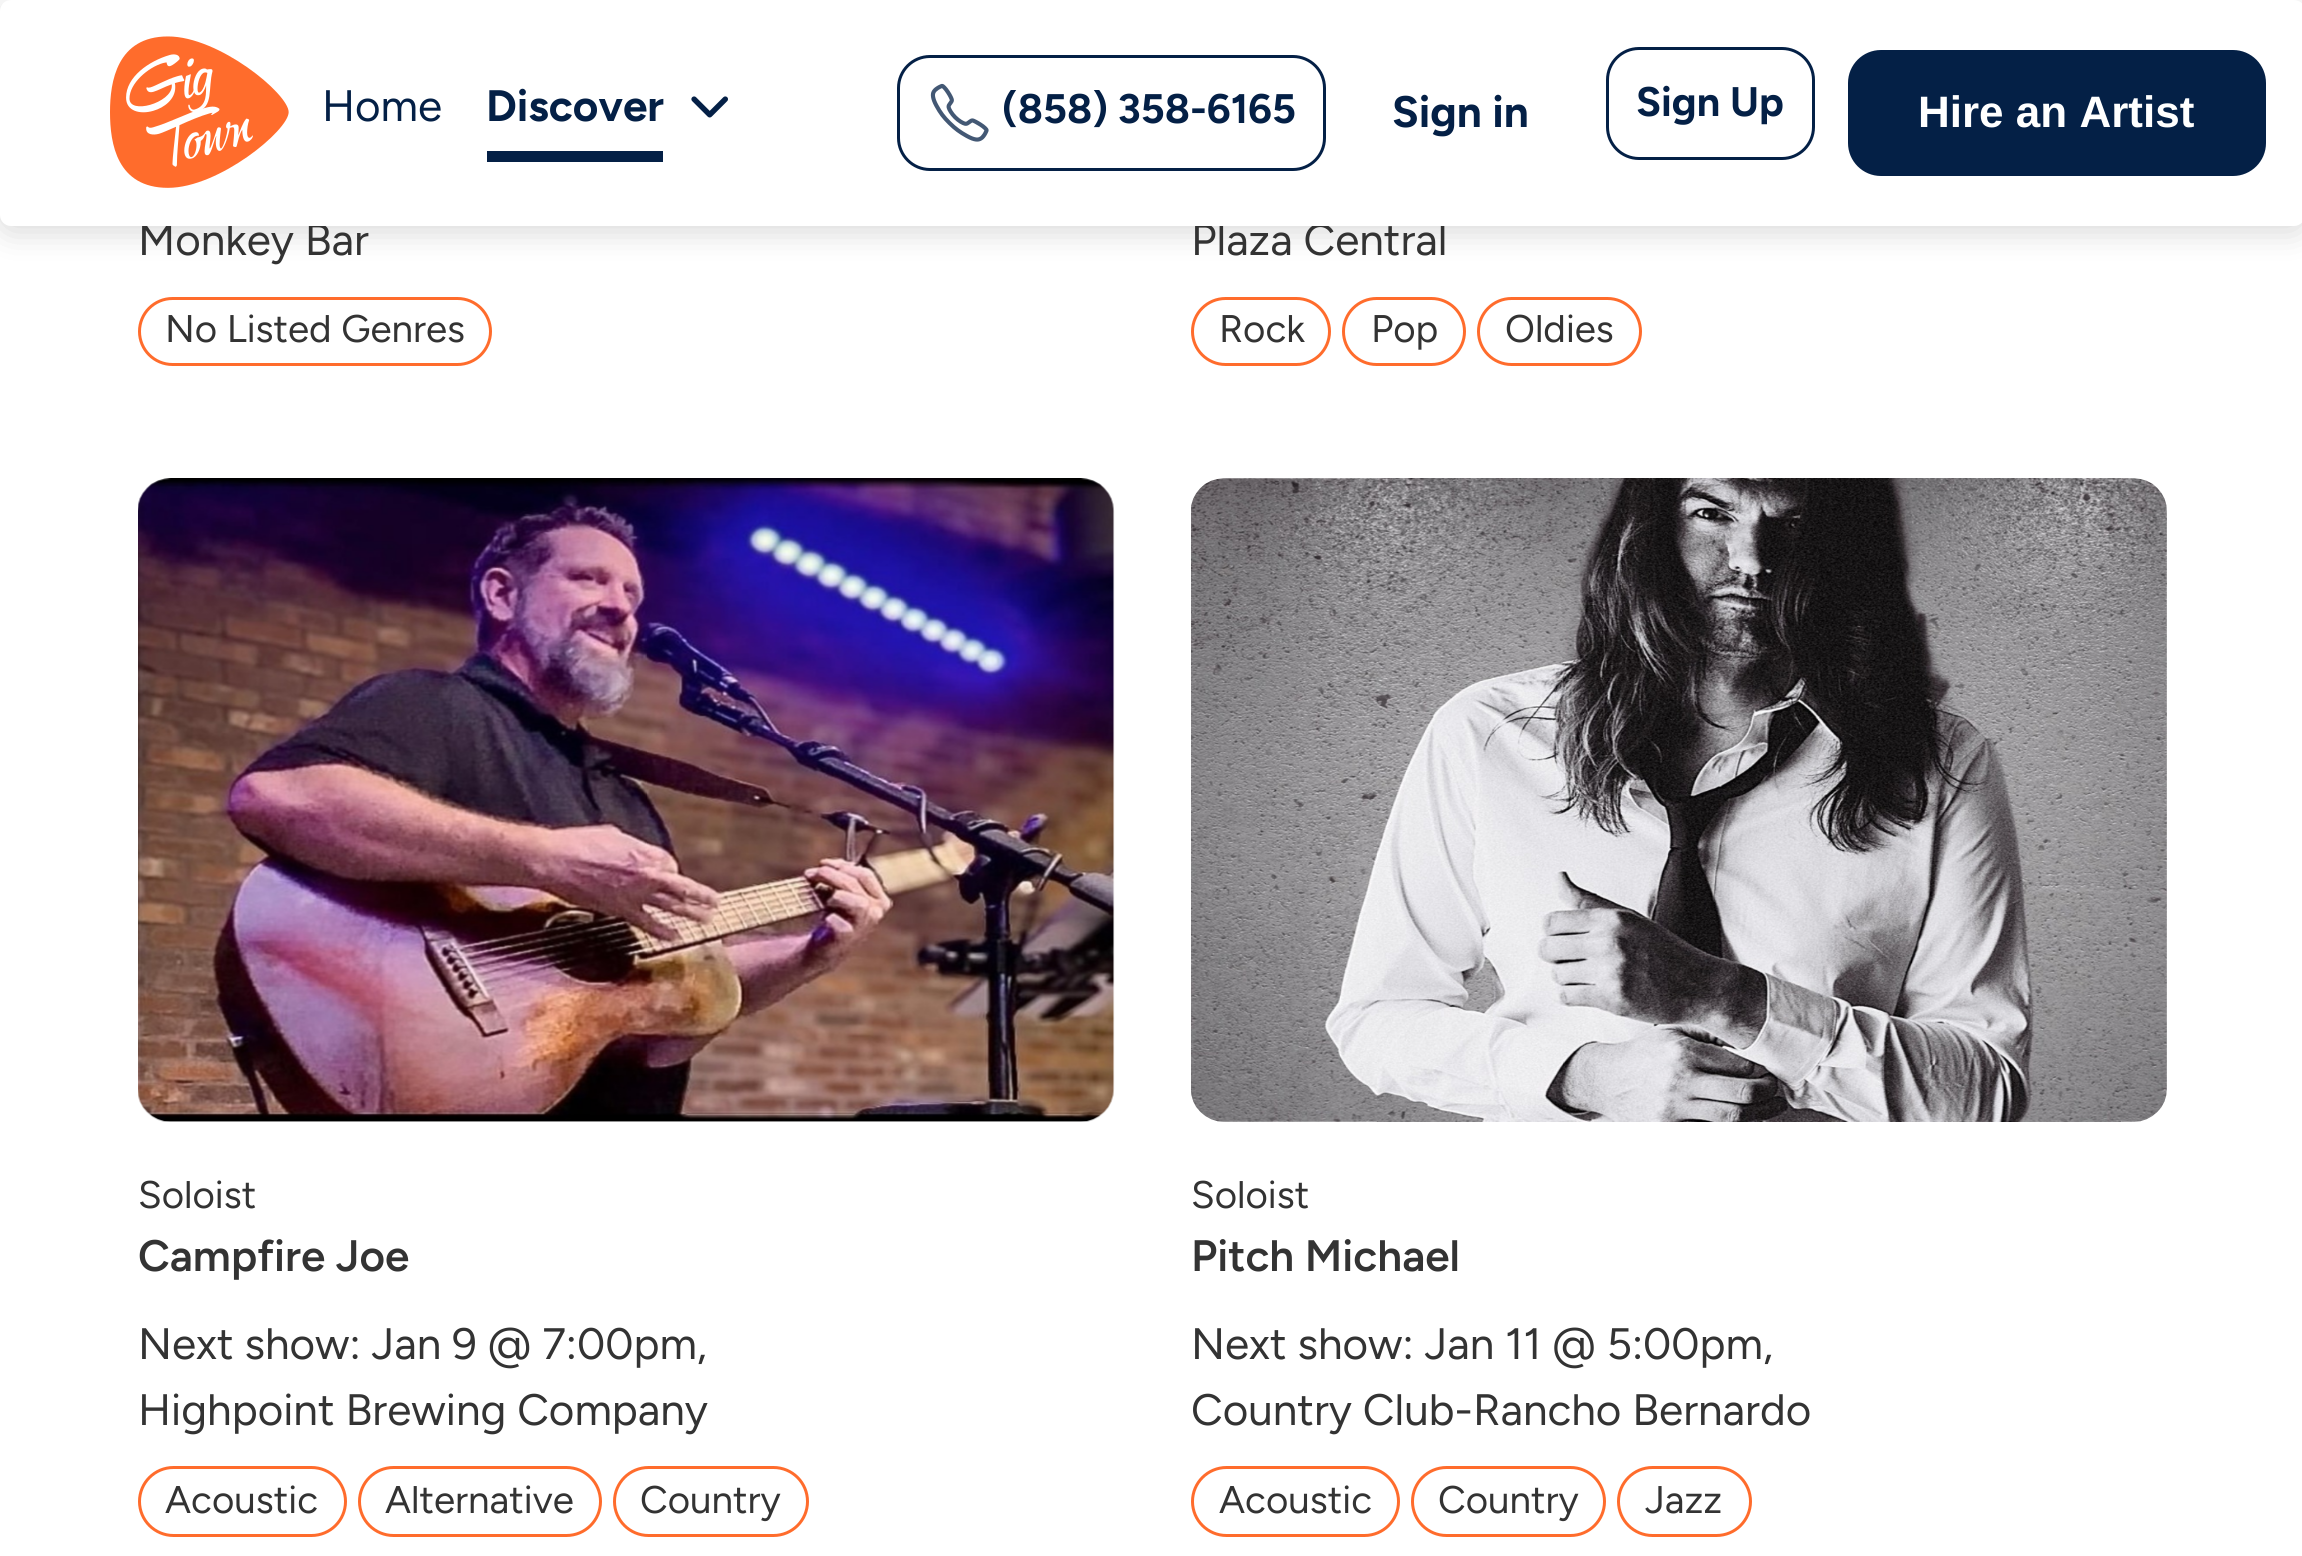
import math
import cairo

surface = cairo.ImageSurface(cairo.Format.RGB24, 2302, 1556)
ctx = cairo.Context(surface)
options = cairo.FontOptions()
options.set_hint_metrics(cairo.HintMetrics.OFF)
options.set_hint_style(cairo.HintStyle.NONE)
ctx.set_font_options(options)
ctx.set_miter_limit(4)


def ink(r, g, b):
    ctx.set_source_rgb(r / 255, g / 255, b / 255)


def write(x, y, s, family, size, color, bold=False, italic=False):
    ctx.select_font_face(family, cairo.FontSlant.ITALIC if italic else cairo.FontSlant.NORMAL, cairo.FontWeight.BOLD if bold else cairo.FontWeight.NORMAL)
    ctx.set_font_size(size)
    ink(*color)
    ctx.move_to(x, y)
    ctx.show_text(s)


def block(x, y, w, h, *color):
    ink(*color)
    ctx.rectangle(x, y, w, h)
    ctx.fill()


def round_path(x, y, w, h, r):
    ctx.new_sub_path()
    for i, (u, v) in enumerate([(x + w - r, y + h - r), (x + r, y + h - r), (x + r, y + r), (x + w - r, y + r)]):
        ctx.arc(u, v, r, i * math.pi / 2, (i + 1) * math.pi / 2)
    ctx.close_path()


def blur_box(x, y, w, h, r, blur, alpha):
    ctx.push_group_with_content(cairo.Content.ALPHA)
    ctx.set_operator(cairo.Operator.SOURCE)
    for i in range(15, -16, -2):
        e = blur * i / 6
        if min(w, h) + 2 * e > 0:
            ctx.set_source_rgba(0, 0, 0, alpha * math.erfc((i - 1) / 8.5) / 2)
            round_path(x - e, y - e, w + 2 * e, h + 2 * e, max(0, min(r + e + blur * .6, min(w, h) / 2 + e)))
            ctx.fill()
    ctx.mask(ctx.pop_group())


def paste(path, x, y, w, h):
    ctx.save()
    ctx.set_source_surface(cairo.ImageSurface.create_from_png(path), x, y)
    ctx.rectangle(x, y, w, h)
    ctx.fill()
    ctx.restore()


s1 = dict(family="Figtree", size=44, color=(51, 51, 51))
s2 = dict(family="Figtree", size=44, color=(4, 32, 70))
s3 = dict(family="Figtree", size=44, color=(4, 32, 70), bold=True)
s4 = dict(family="Figtree", size=41.25, color=(4, 32, 70), bold=True)
s5 = dict(family="Liberation Sans", size=44, color=(255, 255, 255), bold=True)
s6 = dict(family="Figtree", size=38.5, color=(51, 51, 51))
s7 = dict(family="Figtree SemiBold", size=44, color=(51, 51, 51))

ink(255, 255, 255)
ctx.paint()
ink(0, 0, 0)
blur_box(0, 6, 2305, 225, 11, 16.5, 0.16)
write(138, 255, "Monkey Bar", **s1)
write(1191, 255, "Plaza Central", **s1)
ink(255, 255, 255)
round_path(0, 0, 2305, 226, 11)
ctx.fill()
paste("pic1.png", 110, 36, 179, 152)
write(322, 121, "Home", **s2)
block(487, 151, 176, 11, 4, 32, 70)
write(486, 121, "Discover", **s3)
paste("pic2.png", 691, 96, 37, 22)
round_path(898.5, 56.5, 426, 113, 31.5)
ctx.set_line_width(3)
ctx.stroke()
paste("pic3.png", 930, 83, 59, 59)
write(1002, 123, "(858) 358-6165", **s4)
write(1392, 127, "Sign in", **s3)
round_path(1607.5, 48.5, 206, 110, 31.5)
ctx.stroke()
write(1636, 116, "Sign Up", **s4)
round_path(1849.5, 51.5, 415, 123, 31.5)
ctx.fill_preserve()
ctx.stroke()
write(1918, 127, "Hire an Artist", **s5)
round_path(139.5, 298.5, 351, 66, 33)
ink(255, 108, 44)
ctx.stroke()
write(165, 342, "No Listed Genres", **s6)
round_path(1192.5, 298.5, 137, 66, 33)
ink(255, 108, 44)
ctx.stroke()
write(1219, 342, "Rock", **s6)
round_path(1343.5, 298.5, 121, 66, 33)
ink(255, 108, 44)
ctx.stroke()
write(1371, 342, "Pop", **s6)
round_path(1478.5, 298.5, 162, 66, 33)
ink(255, 108, 44)
ctx.stroke()
write(1505, 342, "Oldies", **s6)
paste("pic4.png", 138, 478, 977, 644)
write(138, 1208, "Soloist", **s6)
write(138, 1271, "Campfire Joe", **s7)
write(138, 1359, "Next show: Jan 9 @ 7:00pm,", **s1)
write(138, 1425, "Highpoint Brewing Company", **s1)
round_path(139.5, 1467.5, 206, 68, 34)
ink(255, 108, 44)
ctx.stroke()
write(165, 1513, "Acoustic", **s6)
round_path(359.5, 1467.5, 241, 68, 34)
ink(255, 108, 44)
ctx.stroke()
write(385, 1513, "Alternative", **s6)
round_path(614.5, 1467.5, 193, 68, 34)
ink(255, 108, 44)
ctx.stroke()
write(640, 1513, "Country", **s6)
paste("pic5.png", 1191, 478, 976, 644)
write(1191, 1208, "Soloist", **s6)
write(1191, 1271, "Pitch Michael", **s7)
write(1191, 1359, "Next show: Jan 11 @ 5:00pm,", **s1)
write(1191, 1425, "Country Club-Rancho Bernardo", **s1)
round_path(1192.5, 1467.5, 206, 68, 34)
ink(255, 108, 44)
ctx.stroke()
write(1219, 1513, "Acoustic", **s6)
round_path(1412.5, 1467.5, 192, 68, 34)
ink(255, 108, 44)
ctx.stroke()
write(1438, 1513, "Country", **s6)
round_path(1618.5, 1467.5, 132, 68, 34)
ink(255, 108, 44)
ctx.stroke()
write(1645, 1513, "Jazz", **s6)
surface.write_to_png("screenshot.png")
